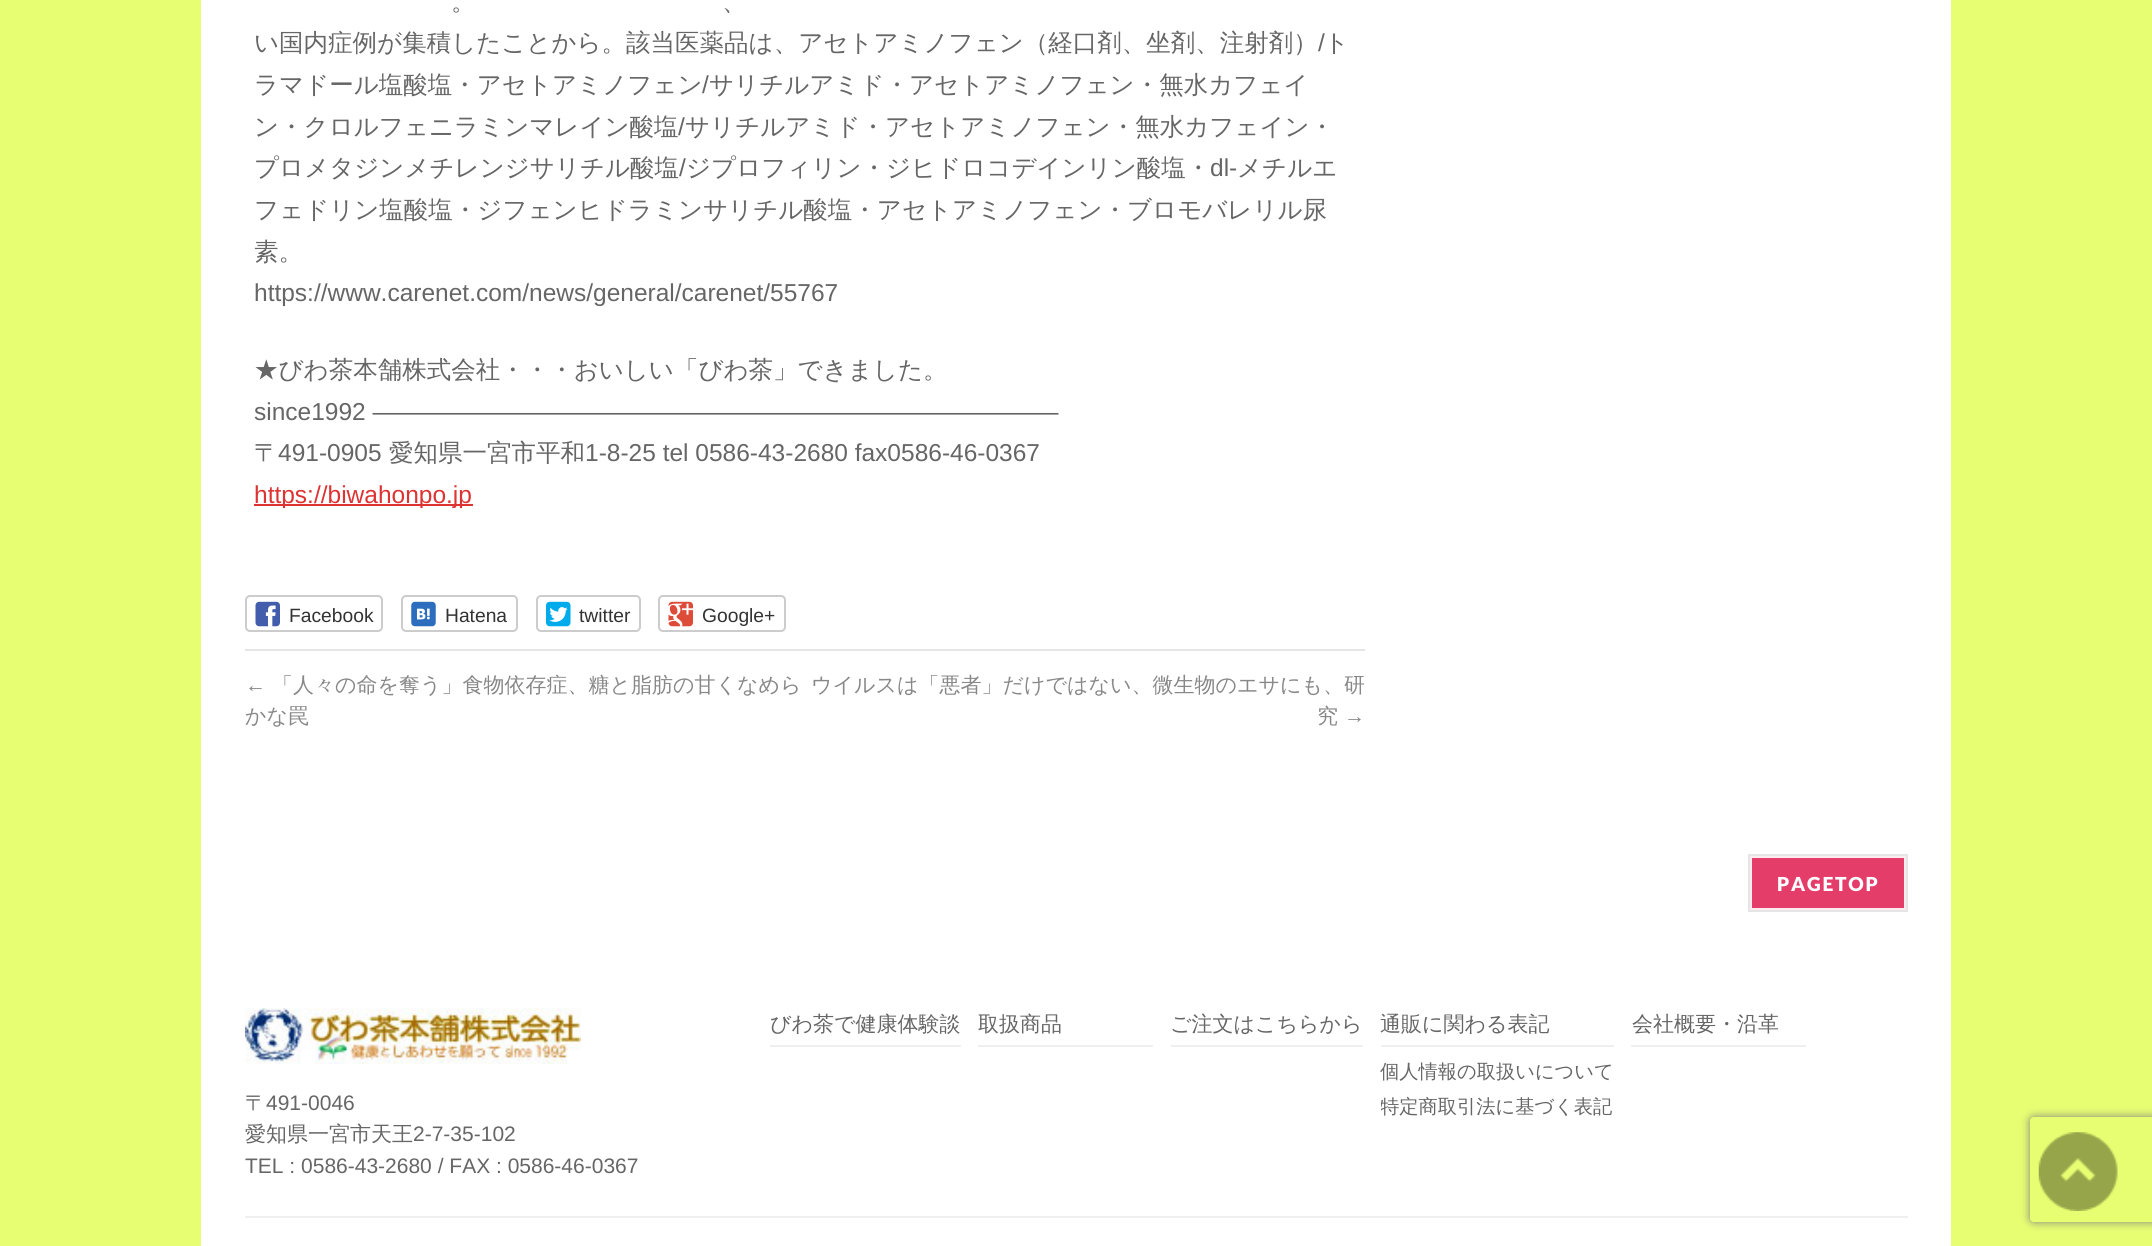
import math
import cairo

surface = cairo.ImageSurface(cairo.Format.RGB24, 2152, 1246)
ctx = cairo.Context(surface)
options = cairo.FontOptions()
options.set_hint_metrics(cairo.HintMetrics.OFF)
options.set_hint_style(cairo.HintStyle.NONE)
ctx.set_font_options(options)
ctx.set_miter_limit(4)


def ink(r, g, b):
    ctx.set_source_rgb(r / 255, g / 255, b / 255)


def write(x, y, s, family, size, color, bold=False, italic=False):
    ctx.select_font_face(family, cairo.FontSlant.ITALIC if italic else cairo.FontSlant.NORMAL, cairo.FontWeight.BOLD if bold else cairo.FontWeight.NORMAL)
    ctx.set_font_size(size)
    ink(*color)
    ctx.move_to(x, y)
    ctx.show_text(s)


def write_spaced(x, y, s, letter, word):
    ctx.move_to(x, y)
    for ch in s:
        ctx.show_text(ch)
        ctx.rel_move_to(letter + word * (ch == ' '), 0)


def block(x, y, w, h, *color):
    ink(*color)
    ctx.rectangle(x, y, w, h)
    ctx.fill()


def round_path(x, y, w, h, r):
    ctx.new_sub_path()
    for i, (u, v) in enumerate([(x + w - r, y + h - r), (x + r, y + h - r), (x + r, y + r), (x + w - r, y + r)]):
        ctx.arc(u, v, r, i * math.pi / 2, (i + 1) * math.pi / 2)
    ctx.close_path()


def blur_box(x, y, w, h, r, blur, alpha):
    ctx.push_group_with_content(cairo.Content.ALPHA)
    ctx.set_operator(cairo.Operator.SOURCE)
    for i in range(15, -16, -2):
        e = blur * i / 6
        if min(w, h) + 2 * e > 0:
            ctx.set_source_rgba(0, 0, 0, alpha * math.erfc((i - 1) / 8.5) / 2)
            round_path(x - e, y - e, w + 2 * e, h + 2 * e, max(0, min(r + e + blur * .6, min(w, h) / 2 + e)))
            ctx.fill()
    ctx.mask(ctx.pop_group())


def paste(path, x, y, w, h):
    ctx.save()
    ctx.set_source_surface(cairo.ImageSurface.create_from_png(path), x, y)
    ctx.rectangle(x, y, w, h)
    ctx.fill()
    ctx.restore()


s1 = dict(family="WenQuanYi Zen Hei Medium", size=24.5, color=(102, 102, 102))
s2 = dict(family="Liberation Sans", size=24.5, color=(102, 102, 102))
s3 = dict(family="Liberation Sans", size=24.5, color=(221, 51, 51))
s4 = dict(family="Liberation Sans", size=19.25, color=(51, 51, 51))
s5 = dict(family="Liberation Sans", size=21, color=(136, 136, 136))
s6 = dict(family="WenQuanYi Zen Hei Medium", size=21, color=(136, 136, 136))
s7 = dict(family="WenQuanYi Zen Hei Medium", size=21, color=(102, 102, 102))
s8 = dict(family="WenQuanYi Zen Hei Medium", size=19.25, color=(102, 102, 102))
s9 = dict(family="Liberation Sans", size=21, color=(102, 102, 102))

ink(231, 254, 114)
ctx.paint()
block(201, 0, 1750, 947, 255, 255, 255)
write(451, 10, "。", **s1)
write(722, 10, "、", **s1)
write(254, 51, "い国内症例が集積したことから。該当医薬品は、アセトアミノフェン（経口剤、坐剤、注射剤）", **s1)
write(1318, 51, "/", **s2)
write(1324, 51, "ト", **s1)
write(254, 93, "ラマドール塩酸塩・アセトアミノフェン", **s1)
write(702, 93, "/", **s2)
write(709, 93, "サリチルアミド・アセトアミノフェン・無水カフェイ", **s1)
write(254, 135, "ン・クロルフェニラミンマレイン酸塩", **s1)
write(678, 135, "/", **s2)
write(685, 135, "サリチルアミド・アセトアミノフェン・無水カフェイン・", **s1)
write(254, 176, "プロメタジンメチレンジサリチル酸塩", **s1)
write(679, 176, "/", **s2)
write(686, 176, "ジプロフィリン・ジヒドロコデインリン酸塩・", **s1)
write(1210, 176, "dl-", **s2)
write(1237, 176, "メチルエ", **s1)
write(254, 218, "フェドリン塩酸塩・ジフェンヒドラミンサリチル酸塩・アセトアミノフェン・ブロモバレリル尿", **s1)
write(254, 260, "素。", **s1)
write(254, 301, "https://www.carenet.com/news/general/carenet/55767", **s2)
write(254, 378, "★びわ茶本舗株式会社・・・おいしい「びわ茶」できました。", **s1)
write(254, 420, "since1992 ――――――――――――――――――――――――――――", **s2)
write(254, 461, "〒", **s1)
write(278, 461, "491-0905", **s2)
write(389, 461, "愛知県一宮市平和", **s1)
write(585, 461, "1-8-25 tel 0586-43-2680 fax0586-46-0367", **s2)
block(254, 504, 219, 2, 221, 51, 51)
write(254, 503, "https://biwahonpo.jp", **s3)
round_path(246, 596, 136, 35, 4)
ink(204, 204, 204)
ctx.stroke()
paste("pic1.png", 255, 601, 25, 26)
write(289, 622, "Facebook", **s4)
round_path(402, 596, 115, 35, 4)
ink(204, 204, 204)
ctx.stroke()
paste("pic2.png", 411, 601, 25, 26)
write(445, 622, "Hatena", **s4)
round_path(537, 596, 103, 35, 4)
ink(204, 204, 204)
ctx.stroke()
paste("pic3.png", 546, 601, 25, 26)
write(579, 622, "twitter", **s4)
round_path(659, 596, 126, 35, 4)
ink(204, 204, 204)
ctx.stroke()
paste("pic4.png", 668, 601, 25, 26)
write(702, 622, "Google+", **s4)
block(245, 649, 1120, 2, 229, 229, 229)
write(245, 692, "←", **s5)
write(272, 692, "「人々の命を奪う」食物依存症、糖と脂肪の甘くなめら", **s6)
write(245, 723, "かな罠", **s6)
write(811, 692, "ウイルスは「悪者」だけではない、微生物のエサにも、研", **s6)
write(1317, 723, "究", **s6)
write(1344, 723, "→", **s5)
ink(229, 61, 106)
ctx.rectangle(1751, 857, 154, 52)
ctx.fill_preserve()
ink(252, 236, 240)
ctx.stroke()
ctx.rectangle(1749, 855, 158, 56)
ink(229, 229, 229)
ctx.stroke()
ctx.select_font_face("Lato Black")
ctx.set_font_size(19.25)
ink(255, 255, 255)
write_spaced(1777, 891, "PAGETOP", 1.75, 0)
block(201, 947, 1750, 299, 255, 255, 255)
block(245, 1216, 1663, 2, 239, 239, 239)
block(770, 1045, 191, 2, 239, 239, 239)
write(770, 1031, "びわ茶で健康体験談", **s7)
block(978, 1045, 175, 2, 239, 239, 239)
write(978, 1031, "取扱商品", **s7)
block(1171, 1045, 192, 2, 239, 239, 239)
write(1170, 1031, "ご注文はこちらから", **s7)
block(1381, 1045, 233, 2, 239, 239, 239)
write(1380, 1031, "通販に関わる表記", **s7)
write(1380, 1078, "個人情報の取扱いについて", **s8)
ctx.save()
ctx.rectangle(1381, 1096, 233, 24)
ctx.clip()
write(1380, 1113, "特定商取引法に基づく表記", **s8)
ctx.restore()
block(1631, 1045, 175, 2, 239, 239, 239)
write(1632, 1031, "会社概要・沿革", **s7)
paste("pic5.png", 245, 1008, 336, 57)
write(245, 1110, "〒", **s7)
write(266, 1110, "491-0046", **s9)
write(245, 1141, "愛知県一宮市天王", **s7)
write(413, 1141, "2-7-35-102", **s9)
write(245, 1173, "TEL : 0586-43-2680 / FAX : 0586-46-0367", **s9)
ctx.save()
ctx.set_fill_rule(cairo.FillRule.EVEN_ODD)
ctx.new_path()
ctx.move_to(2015, 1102)
ctx.line_to(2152, 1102)
ctx.line_to(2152, 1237)
ctx.line_to(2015, 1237)
ctx.close_path()
ctx.move_to(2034, 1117)
ctx.line_to(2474, 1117)
ctx.curve_to(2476, 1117, 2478, 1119, 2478, 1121)
ctx.line_to(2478, 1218)
ctx.curve_to(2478, 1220, 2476, 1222, 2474, 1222)
ctx.line_to(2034, 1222)
ctx.curve_to(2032, 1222, 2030, 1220, 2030, 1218)
ctx.line_to(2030, 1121)
ctx.curve_to(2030, 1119, 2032, 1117, 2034, 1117)
ctx.close_path()
ctx.clip()
ink(128, 128, 128)
blur_box(2030, 1117, 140, 105, 4, 4.5, 1)
ctx.restore()
paste("pic6.png", 2038, 1132, 80, 79)
surface.write_to_png("screenshot.png")
